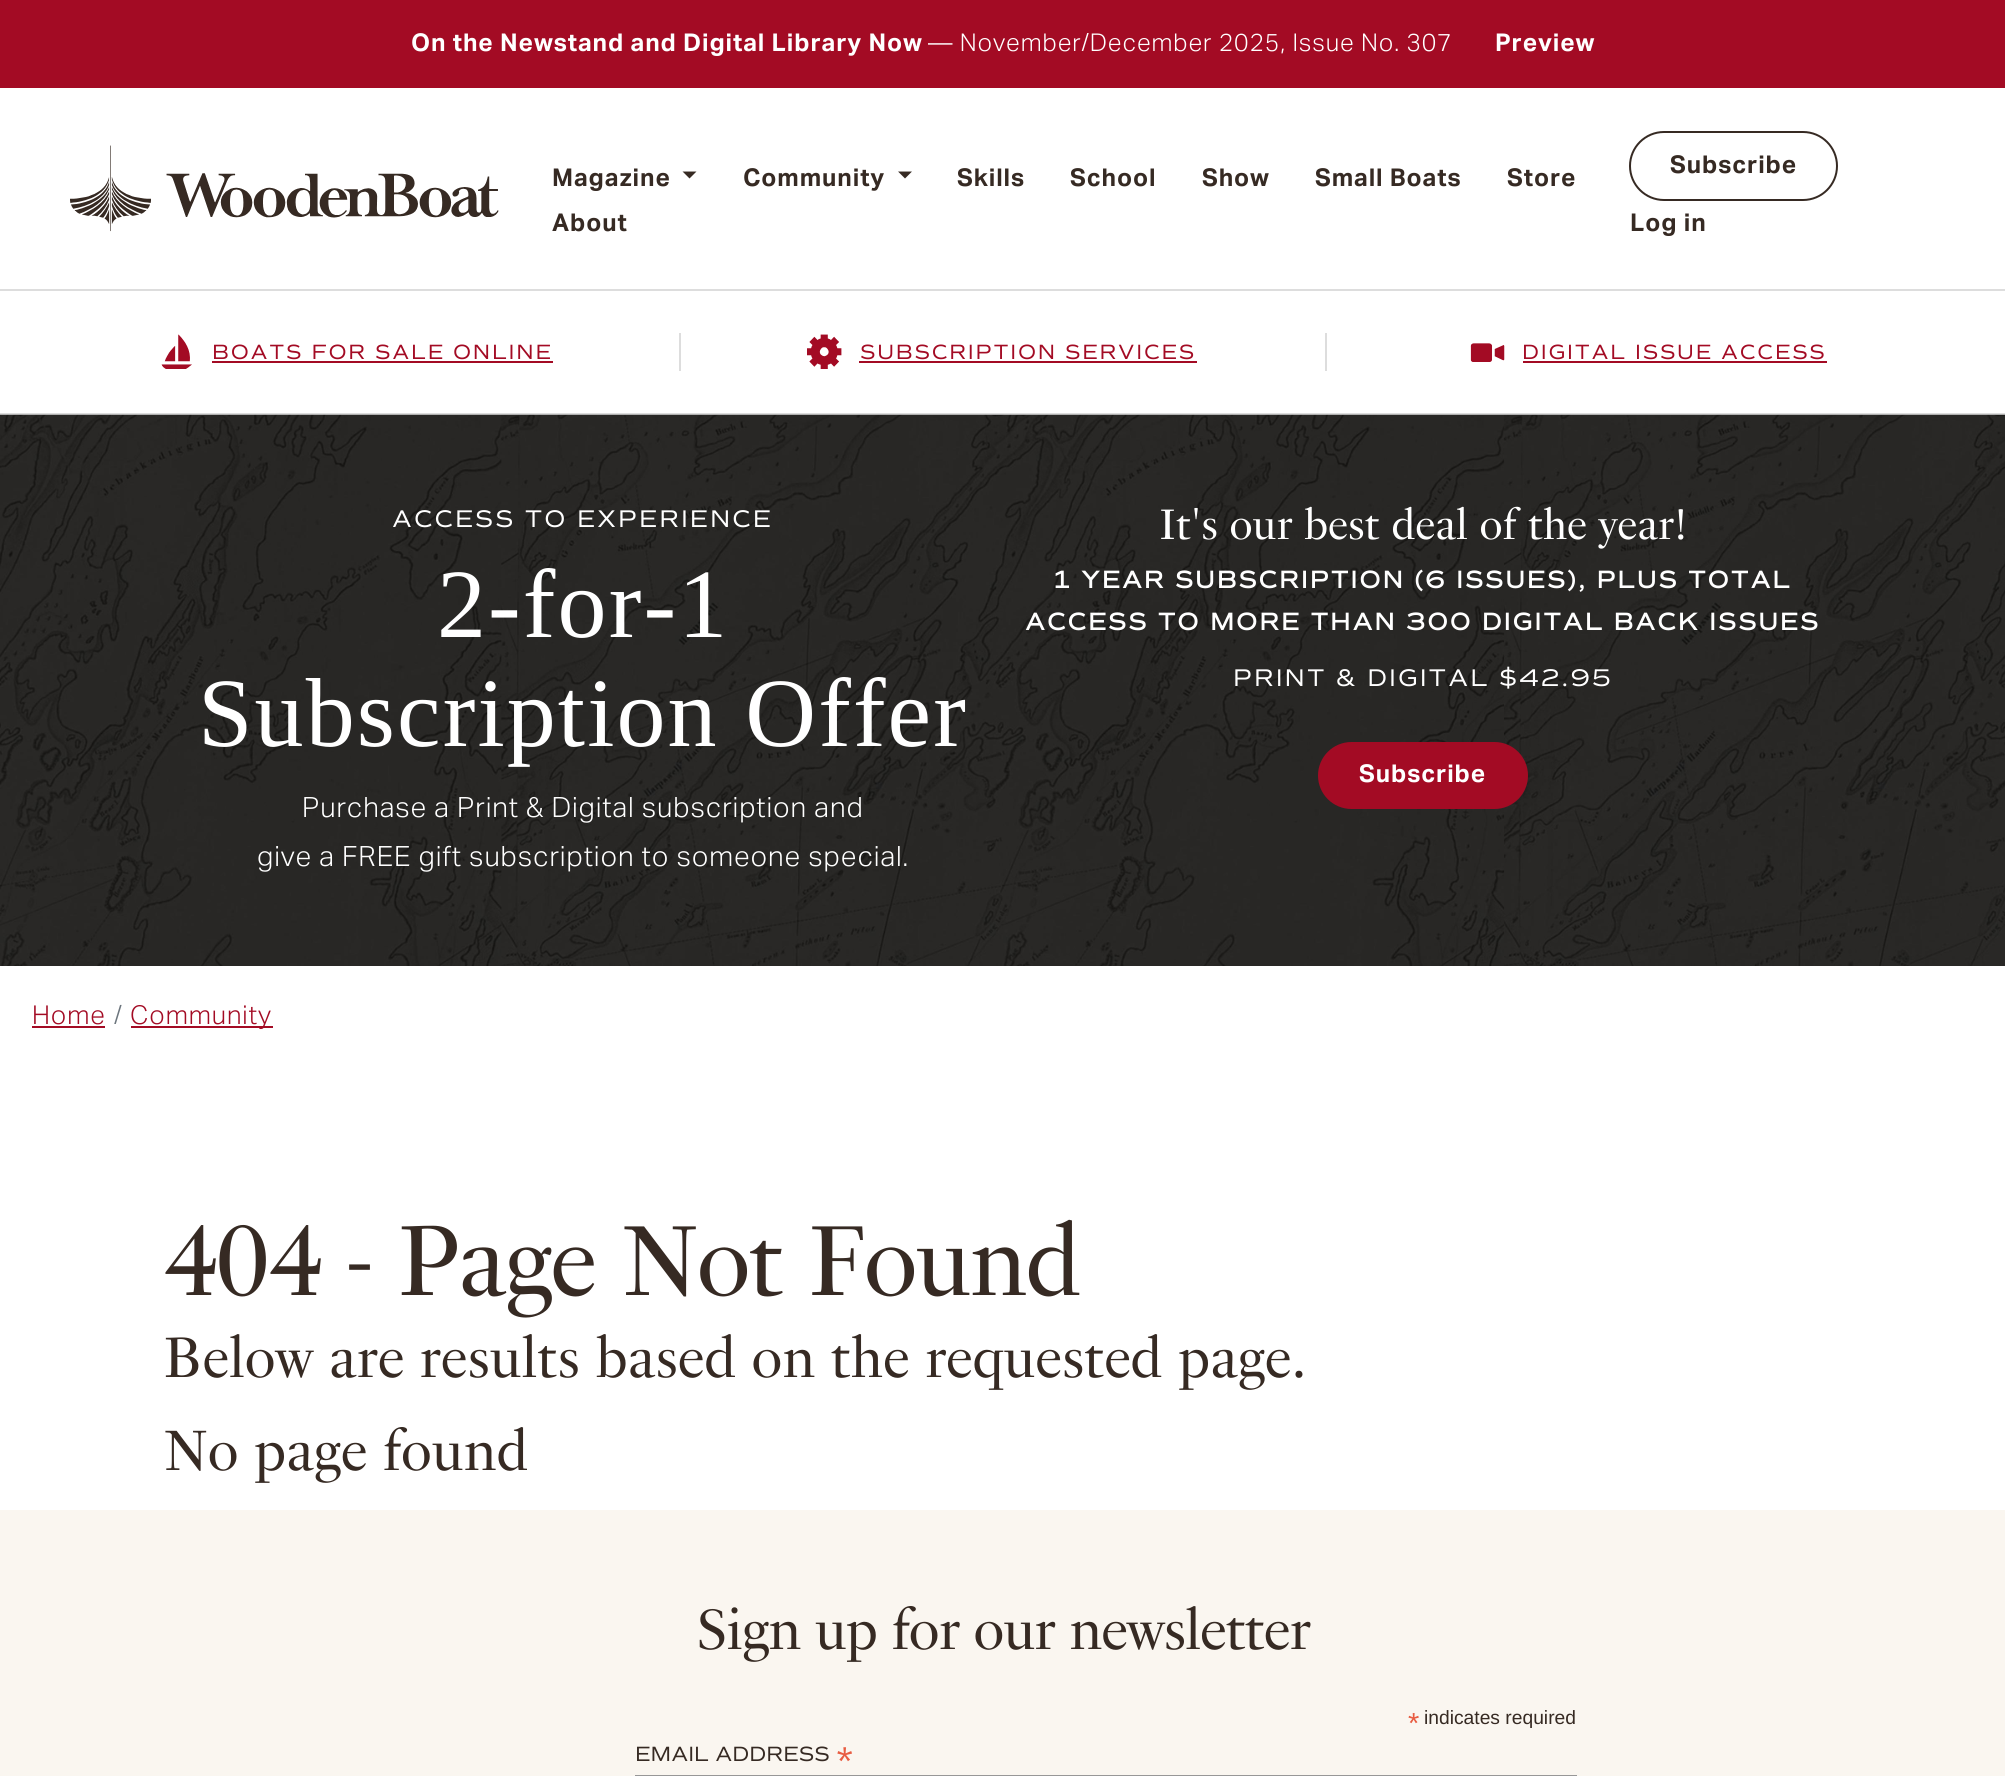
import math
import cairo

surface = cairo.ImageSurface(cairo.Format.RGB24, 2005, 1776)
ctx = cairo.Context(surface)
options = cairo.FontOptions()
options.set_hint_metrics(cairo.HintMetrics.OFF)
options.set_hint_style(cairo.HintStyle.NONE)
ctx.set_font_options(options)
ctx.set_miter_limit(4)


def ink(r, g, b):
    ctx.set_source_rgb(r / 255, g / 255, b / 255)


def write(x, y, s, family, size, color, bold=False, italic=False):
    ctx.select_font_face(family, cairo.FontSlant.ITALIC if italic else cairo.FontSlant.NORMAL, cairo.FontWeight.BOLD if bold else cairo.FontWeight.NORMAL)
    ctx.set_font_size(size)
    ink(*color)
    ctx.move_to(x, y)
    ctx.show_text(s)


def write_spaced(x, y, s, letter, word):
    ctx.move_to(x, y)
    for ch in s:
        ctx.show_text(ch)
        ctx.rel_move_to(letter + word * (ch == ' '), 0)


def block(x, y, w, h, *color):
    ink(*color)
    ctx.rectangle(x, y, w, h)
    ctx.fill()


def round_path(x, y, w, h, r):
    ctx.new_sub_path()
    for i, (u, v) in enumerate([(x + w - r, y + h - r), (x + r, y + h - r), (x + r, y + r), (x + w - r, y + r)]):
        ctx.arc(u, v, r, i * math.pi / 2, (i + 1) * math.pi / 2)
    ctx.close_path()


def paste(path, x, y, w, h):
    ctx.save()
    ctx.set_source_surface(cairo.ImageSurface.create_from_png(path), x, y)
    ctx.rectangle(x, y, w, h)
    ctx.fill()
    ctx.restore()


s1 = dict(family="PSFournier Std", size=42, color=(255, 255, 255))
s2 = dict(family="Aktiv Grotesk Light", size=26, color=(108, 117, 125))
s3 = dict(family="PSFournier Std", size=56, color=(54, 42, 35))
s4 = dict(family="Liberation Sans", size=29, color=(232, 92, 65))
s5 = dict(family="Liberation Sans", size=19.25, color=(54, 42, 35))
s6 = dict(family="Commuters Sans", size=21, color=(54, 42, 35))
s7 = dict(family="Commuters Sans", size=32, color=(232, 92, 65))

ink(255, 255, 255)
ctx.paint()
block(0, 0, 2005, 88, 163, 11, 36)
ctx.select_font_face("Aktiv Grotesk", cairo.FontSlant.NORMAL, cairo.FontWeight.BOLD)
ctx.set_font_size(24.5)
ink(255, 255, 255)
write_spaced(411, 51, "On the Newstand and Digital Library Now", 0.9, 0)
ctx.select_font_face("Aktiv Grotesk Light")
write_spaced(928, 51, "— November/December 2025, Issue No. 307", 0.9, 0)
ctx.select_font_face("Aktiv Grotesk", cairo.FontSlant.NORMAL, cairo.FontWeight.BOLD)
write_spaced(1495, 51, "Preview", 0.9, 0)
block(0, 289, 2005, 2, 221, 221, 221)
paste("pic1.png", 70, 145, 429, 87)
ink(54, 42, 35)
write_spaced(552, 186, "Magazine", 0.9, 0)
ctx.new_path()
ctx.move_to(682.5, 171.5)
ctx.line_to(696.5, 171.5)
ctx.line_to(689.5, 178.5)
ctx.close_path()
ctx.fill()
write_spaced(743, 186, "Community", 0.9, 0)
ctx.new_path()
ctx.move_to(898, 171.5)
ctx.line_to(912, 171.5)
ctx.line_to(905, 178.5)
ctx.close_path()
ctx.fill()
write_spaced(957, 186, "Skills", 0.9, 0)
write_spaced(1070, 186, "School", 0.9, 0)
write_spaced(1202, 186, "Show", 0.9, 0)
write_spaced(1315, 186, "Small Boats", 0.9, 0)
write_spaced(1507, 186, "Store", 0.9, 0)
write_spaced(552, 231, "About", 0.9, 0)
round_path(1630, 132, 207, 68, 34)
ctx.stroke()
write_spaced(1670, 173, "Subscribe", 0.9, 0)
write_spaced(1630, 231, "Log in", 0.9, 0)
block(0, 413, 2005, 2, 221, 221, 221)
block(679, 333, 2, 38, 221, 221, 221)
paste("pic2.png", 161, 334, 31, 35)
ctx.select_font_face("Commuters Sans")
ctx.set_font_size(21)
ink(163, 11, 36)
write_spaced(212, 359, "BOATS FOR SALE ONLINE", 1.75, 0)
block(212, 361, 341, 2, 163, 11, 36)
block(1325, 333, 2, 38, 221, 221, 221)
paste("pic3.png", 807, 334, 35, 35)
ink(163, 11, 36)
write_spaced(860, 359, "SUBSCRIPTION SERVICES", 1.75, 0)
block(859, 361, 338, 2, 163, 11, 36)
paste("pic4.png", 1470, 343, 35, 19)
write_spaced(1522, 359, "DIGITAL ISSUE ACCESS", 1.75, 0)
block(1523, 361, 304, 2, 163, 11, 36)
paste("pic5.png", 0, 414, 2005, 552)
ctx.set_font_size(24.5)
ink(255, 255, 255)
write_spaced(392, 527, "ACCESS TO EXPERIENCE", 2.05, 0)
ctx.select_font_face("Liberation Serif")
ctx.set_font_size(98)
write_spaced(437, 637, "2-for-1", 2.1, 0)
write_spaced(198, 746, "Subscription Offer", 2.1, 0)
ctx.select_font_face("Aktiv Grotesk Light")
ctx.set_font_size(28)
write_spaced(302, 817, "Purchase a Print & Digital subscription and", 0.9, 0)
write_spaced(257, 866, "give a FREE gift subscription to someone special.", 0.9, 0)
write(1159, 539, "It's our best deal of the year!", **s1)
ctx.select_font_face("Commuters Sans", cairo.FontSlant.NORMAL, cairo.FontWeight.BOLD)
ctx.set_font_size(24.5)
write_spaced(1054, 588, "1 YEAR SUBSCRIPTION (6 ISSUES), PLUS TOTAL", 2.05, 0)
write_spaced(1025, 630, "ACCESS TO MORE THAN 300 DIGITAL BACK ISSUES", 2.05, 0)
ctx.select_font_face("Commuters Sans")
write_spaced(1233, 686, "PRINT & DIGITAL $42.95", 2.05, 0)
ink(163, 11, 36)
round_path(1318, 742, 210, 67, 33.5)
ctx.fill()
ctx.select_font_face("Aktiv Grotesk", cairo.FontSlant.NORMAL, cairo.FontWeight.BOLD)
ink(255, 255, 255)
write_spaced(1359, 782, "Subscribe", 0.9, 0)
ctx.select_font_face("Aktiv Grotesk Light")
ctx.set_font_size(26)
ink(163, 11, 36)
write_spaced(32, 1024, "Home", 0.9, 0)
block(32, 1026, 73, 2, 163, 11, 36)
write(114, 1024, "/", **s2)
block(131, 1026, 142, 2, 163, 11, 36)
write_spaced(130, 1024, "Community", 0.9, 0)
ctx.select_font_face("PSFournier Std")
ctx.set_font_size(98)
ink(54, 42, 35)
write_spaced(163, 1295, "404 - Page Not Found", -1.75, 0)
write(163, 1377, "Below are results based on the requested page.", **s3)
write(163, 1470, "No page found", **s3)
block(0, 1510, 2005, 266, 250, 246, 240)
ink(54, 42, 35)
write_spaced(696, 1649, "Sign up for our newsletter", -0.9, 0)
write(1408, 1733, "*", **s4)
write(1424, 1724, "indicates required", **s5)
write(635, 1761, "EMAIL ADDRESS", **s6)
write(836, 1769, "*", **s7)
ctx.rectangle(636, 1776, 940, 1)
ink(151, 151, 151)
ctx.stroke()
surface.write_to_png("screenshot.png")
